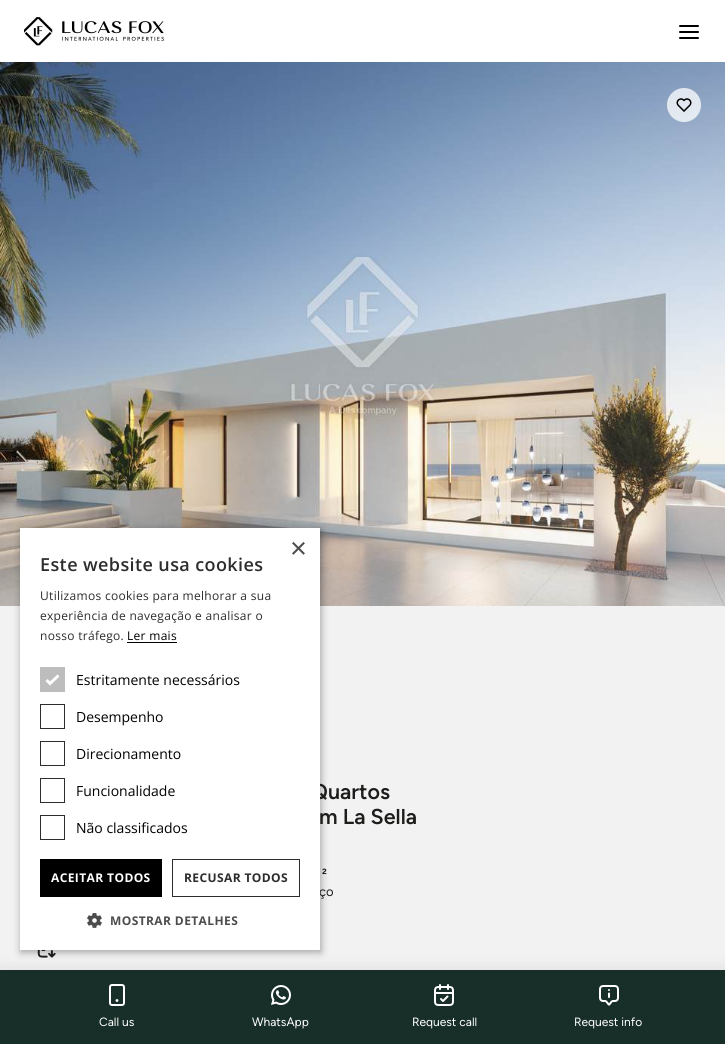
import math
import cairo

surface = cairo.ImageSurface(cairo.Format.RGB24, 725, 1044)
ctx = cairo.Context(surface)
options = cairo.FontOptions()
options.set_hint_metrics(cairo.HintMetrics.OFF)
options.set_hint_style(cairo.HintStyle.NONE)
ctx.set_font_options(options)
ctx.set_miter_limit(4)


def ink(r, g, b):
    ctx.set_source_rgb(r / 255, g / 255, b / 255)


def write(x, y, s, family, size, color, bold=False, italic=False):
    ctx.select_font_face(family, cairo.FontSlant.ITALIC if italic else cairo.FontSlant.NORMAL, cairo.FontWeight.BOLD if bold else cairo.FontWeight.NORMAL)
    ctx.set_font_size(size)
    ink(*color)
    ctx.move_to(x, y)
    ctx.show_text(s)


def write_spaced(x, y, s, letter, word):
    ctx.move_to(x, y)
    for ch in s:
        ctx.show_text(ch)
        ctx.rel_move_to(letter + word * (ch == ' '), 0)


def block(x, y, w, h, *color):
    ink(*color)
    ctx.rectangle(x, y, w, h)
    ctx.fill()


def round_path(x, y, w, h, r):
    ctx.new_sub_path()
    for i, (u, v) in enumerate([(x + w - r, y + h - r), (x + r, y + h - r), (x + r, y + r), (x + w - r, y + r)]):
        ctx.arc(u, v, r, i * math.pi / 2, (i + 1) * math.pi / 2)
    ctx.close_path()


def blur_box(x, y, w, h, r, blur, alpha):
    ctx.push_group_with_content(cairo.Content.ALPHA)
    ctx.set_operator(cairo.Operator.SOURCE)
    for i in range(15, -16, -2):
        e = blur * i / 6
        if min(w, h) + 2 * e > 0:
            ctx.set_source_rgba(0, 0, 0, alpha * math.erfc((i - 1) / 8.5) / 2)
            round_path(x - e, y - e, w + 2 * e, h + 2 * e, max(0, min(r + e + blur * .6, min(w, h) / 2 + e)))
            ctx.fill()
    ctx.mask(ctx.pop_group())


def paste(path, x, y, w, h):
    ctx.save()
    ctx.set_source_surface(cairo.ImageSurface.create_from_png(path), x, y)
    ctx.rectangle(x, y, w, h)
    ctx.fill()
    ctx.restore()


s1 = dict(family="Figtree SemiBold", size=21.5, color=(29, 29, 27))
s2 = dict(family="Figtree Light", size=13, color=(29, 29, 27))
s3 = dict(family="Liberation Sans", size=29, color=(77, 77, 77))
s4 = dict(family="Open Sans", size=14, color=(0, 0, 0))
s5 = dict(family="Figtree SemiBold", size=13, color=(29, 29, 27))
s6 = dict(family="Figtree Light", size=12, color=(255, 255, 255))

ink(255, 255, 255)
ctx.paint()
paste("pic1.png", 24, 17, 140, 29)
ctx.new_path()
ctx.move_to(680, 32)
ctx.line_to(698, 32)
ctx.move_to(680, 26)
ctx.line_to(698, 26)
ctx.move_to(680, 38)
ctx.line_to(698, 38)
ink(0, 0, 0)
ctx.set_line_cap(cairo.LineCap.ROUND)
ctx.set_line_join(cairo.LineJoin.ROUND)
ctx.stroke()
block(0, 606, 725, 364, 242, 242, 242)
paste("pic3.png", 0, 62, 725, 544)
paste("pic5.png", 37, 950, 19, 8)
ink(0, 0, 0)
blur_box(21, 530, 300, 422, 0, 4, 0.35)
write(311, 799, "Quartos", **s1)
write(319, 896, "ço", **s2)
ink(0, 0, 0)
blur_box(0, 970, 725, 74, 0, 8, 0.1)
block(20, 528, 300, 422, 255, 255, 255)
write(290, 558, "×", **s3)
ctx.select_font_face("Open Sans SemiBold")
ctx.set_font_size(18)
ink(45, 45, 45)
write_spaced(40, 571, "Este website usa cookies", 0.4, 0)
ctx.select_font_face("Open Sans")
ctx.set_font_size(12)
write_spaced(40, 600, "Utilizamos cookies para melhorar a sua", 0.3, 0)
write_spaced(40, 620, "experiência de navegação e analisar o", 0.3, 0)
write_spaced(40, 640, "nosso tráfego.", 0.3, 0)
ink(0, 0, 0)
write_spaced(127, 640, "Ler mais", 0.3, 0)
block(127, 642, 50, 1, 0, 0, 0)
block(40, 667, 25, 25, 189, 189, 189)
ctx.new_path()
ctx.move_to(46.5, 680)
ctx.line_to(50, 683.5)
ctx.line_to(58.5, 675.5)
ink(255, 255, 255)
ctx.set_line_width(2.9)
ctx.set_line_cap(cairo.LineCap.BUTT)
ctx.set_line_join(cairo.LineJoin.MITER)
ctx.stroke()
write(76, 685, "Estritamente necessários", **s4)
ctx.rectangle(40.5, 704.5, 24, 24)
ink(45, 45, 45)
ctx.set_line_width(1)
ctx.stroke()
write(76, 722, "Desempenho", **s4)
ctx.rectangle(40.5, 741.5, 24, 24)
ink(45, 45, 45)
ctx.stroke()
write(76, 759, "Direcionamento", **s4)
ctx.rectangle(40.5, 778.5, 24, 24)
ink(45, 45, 45)
ctx.stroke()
write(76, 796, "Funcionalidade", **s4)
ctx.rectangle(40.5, 815.5, 24, 24)
ink(45, 45, 45)
ctx.stroke()
write(76, 833, "Não classificados", **s4)
block(40, 859, 122, 38, 0, 0, 0)
ctx.select_font_face("Open Sans", cairo.FontSlant.NORMAL, cairo.FontWeight.BOLD)
ctx.set_font_size(12)
ink(255, 255, 255)
write_spaced(51, 882, "ACEITAR TODOS", 0.4, 0)
ctx.rectangle(172.5, 859.5, 127, 37)
ink(45, 45, 45)
ctx.stroke()
write_spaced(184, 882, "RECUSAR TODOS", 0.4, 0)
paste("pic2.png", 87, 913, 15, 15)
ink(77, 77, 77)
write_spaced(110, 925, "MOSTRAR DETALHES", 0.4, 0)
ctx.set_source_rgba(1, 1, 1, 0.75)
ctx.new_path()
ctx.arc(684, 105, 17, 0, 2 * math.pi)
ctx.fill()
paste("pic4.png", 676, 98, 16, 14)
write(319, 824, "m La Sella", **s1)
write(322, 879, "²", **s5)
block(0, 970, 725, 74, 23, 47, 40)
paste("pic6.png", 109, 984, 16, 22)
write(99, 1026, "Call us", **s6)
paste("pic7.png", 271, 985, 20, 20)
write(252, 1026, "WhatsApp", **s6)
paste("pic8.png", 434, 984, 20, 22)
write(412, 1026, "Request call", **s6)
paste("pic9.png", 599, 985, 20, 21)
write(574, 1026, "Request info", **s6)
surface.write_to_png("screenshot.png")
